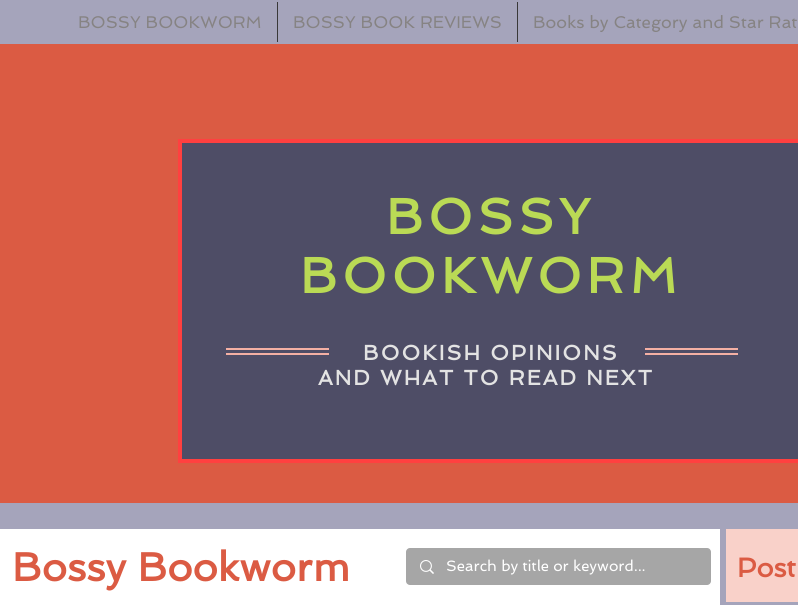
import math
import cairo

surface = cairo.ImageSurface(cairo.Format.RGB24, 798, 605)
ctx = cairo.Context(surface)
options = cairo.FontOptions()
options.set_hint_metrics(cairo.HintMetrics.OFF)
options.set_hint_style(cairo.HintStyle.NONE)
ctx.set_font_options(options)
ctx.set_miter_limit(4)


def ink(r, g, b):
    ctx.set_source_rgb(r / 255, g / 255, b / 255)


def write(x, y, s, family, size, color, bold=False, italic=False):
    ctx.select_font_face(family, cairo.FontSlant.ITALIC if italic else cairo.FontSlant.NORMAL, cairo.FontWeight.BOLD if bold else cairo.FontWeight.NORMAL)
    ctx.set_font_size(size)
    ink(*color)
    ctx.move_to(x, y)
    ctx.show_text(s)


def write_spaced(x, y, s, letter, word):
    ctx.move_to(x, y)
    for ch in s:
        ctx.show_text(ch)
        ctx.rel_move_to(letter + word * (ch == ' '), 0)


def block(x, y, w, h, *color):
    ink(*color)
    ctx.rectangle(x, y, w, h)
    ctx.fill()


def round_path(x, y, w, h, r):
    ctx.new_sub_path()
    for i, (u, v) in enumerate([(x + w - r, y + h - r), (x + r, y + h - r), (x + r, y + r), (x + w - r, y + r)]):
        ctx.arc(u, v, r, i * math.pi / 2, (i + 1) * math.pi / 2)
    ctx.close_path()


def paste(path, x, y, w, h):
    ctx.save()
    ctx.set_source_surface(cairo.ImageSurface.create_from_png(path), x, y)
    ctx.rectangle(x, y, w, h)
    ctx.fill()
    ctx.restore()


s1 = dict(family="Spinnaker", size=17, color=(134, 131, 131))
s2 = dict(family="Spinnaker", size=40, color=(219, 91, 67), bold=True)
s3 = dict(family="Spinnaker", size=15, color=(255, 255, 255))
s4 = dict(family="Spinnaker", size=27, color=(219, 91, 67), bold=True)

ink(165, 164, 187)
ctx.paint()
write(78, 28, "BOSSY BOOKWORM", **s1)
block(277, 2, 1, 40, 57, 56, 56)
write(293, 28, "BOSSY BOOK REVIEWS", **s1)
block(517, 2, 1, 40, 57, 56, 56)
write(533, 28, "Books by Category and Star Rat", **s1)
block(0, 44, 798, 459, 219, 91, 67)
ink(78, 77, 102)
ctx.rectangle(180, 141, 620, 320)
ctx.fill_preserve()
ink(255, 64, 64)
ctx.set_line_width(4)
ctx.stroke()
ctx.select_font_face("Spinnaker", cairo.FontSlant.NORMAL, cairo.FontWeight.BOLD)
ctx.set_font_size(50)
ink(186, 218, 85)
write_spaced(386, 234, "BOSSY", 5, 0)
write_spaced(300, 293, "BOOKWORM", 5, 0)
block(226, 348, 103, 2, 244, 176, 164)
block(226, 353, 103, 2, 244, 176, 164)
ctx.set_font_size(21)
ink(227, 227, 227)
write_spaced(363, 360, "BOOKISH OPINIONS", 2.1, 0)
write_spaced(318, 385, "AND WHAT TO READ NEXT", 2.1, 0)
block(645, 348, 93, 2, 244, 176, 164)
block(645, 353, 93, 2, 244, 176, 164)
block(0, 529, 720, 76, 255, 255, 255)
write(12, 581, "Bossy Bookworm", **s2)
ink(166, 166, 166)
round_path(406, 548, 305, 37, 4)
ctx.fill()
paste("pic1.png", 420, 560, 14, 14)
write(446, 571, "Search by title or keyword...", **s3)
block(726, 529, 72, 73, 249, 209, 201)
write(737, 577, "Post", **s4)
surface.write_to_png("screenshot.png")
